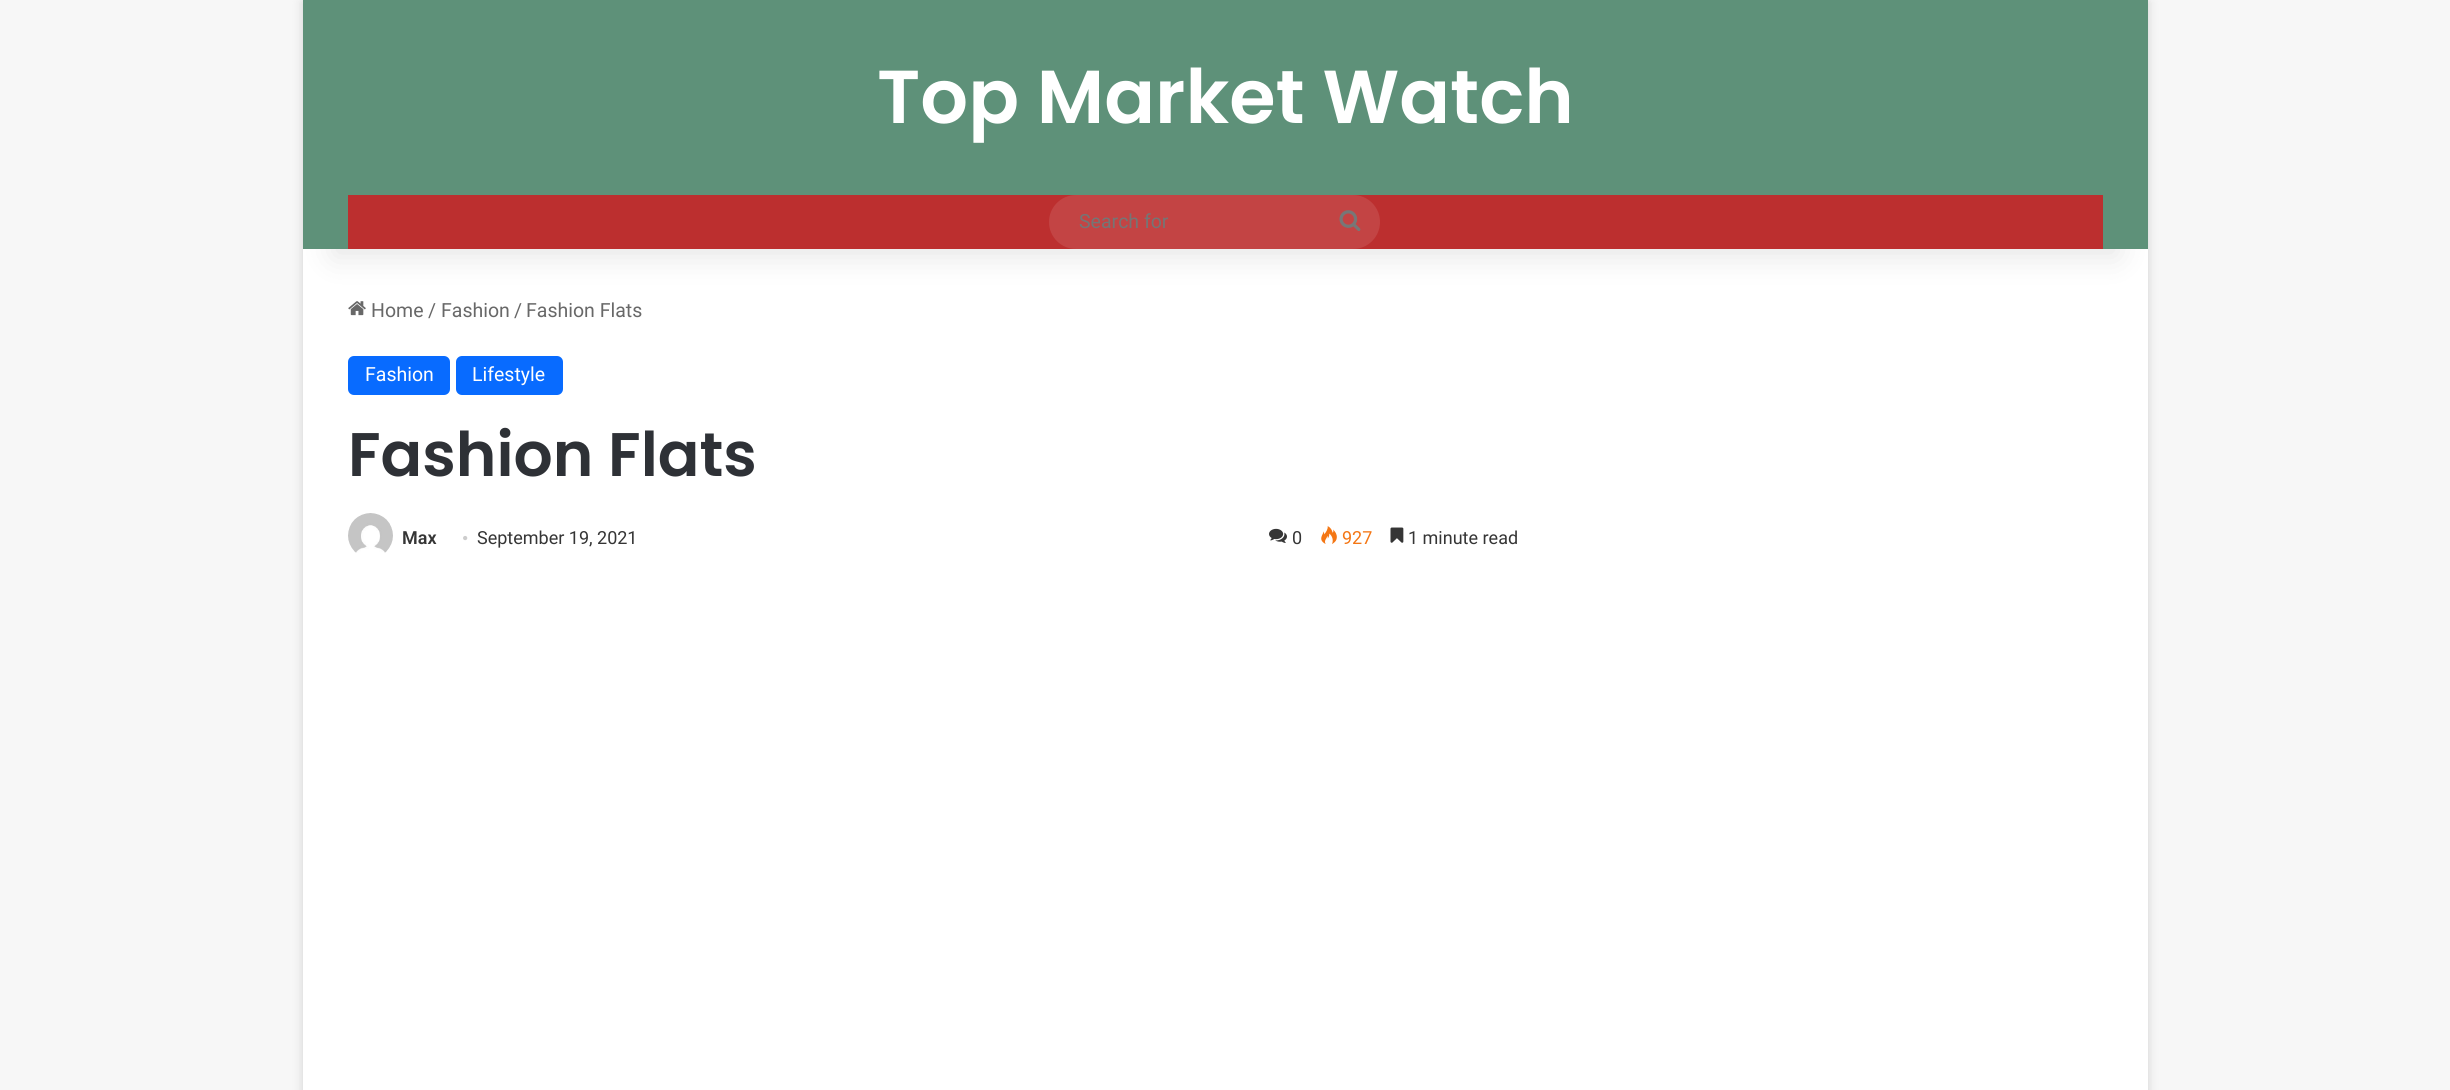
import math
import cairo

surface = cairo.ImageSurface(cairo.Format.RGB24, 2450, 1090)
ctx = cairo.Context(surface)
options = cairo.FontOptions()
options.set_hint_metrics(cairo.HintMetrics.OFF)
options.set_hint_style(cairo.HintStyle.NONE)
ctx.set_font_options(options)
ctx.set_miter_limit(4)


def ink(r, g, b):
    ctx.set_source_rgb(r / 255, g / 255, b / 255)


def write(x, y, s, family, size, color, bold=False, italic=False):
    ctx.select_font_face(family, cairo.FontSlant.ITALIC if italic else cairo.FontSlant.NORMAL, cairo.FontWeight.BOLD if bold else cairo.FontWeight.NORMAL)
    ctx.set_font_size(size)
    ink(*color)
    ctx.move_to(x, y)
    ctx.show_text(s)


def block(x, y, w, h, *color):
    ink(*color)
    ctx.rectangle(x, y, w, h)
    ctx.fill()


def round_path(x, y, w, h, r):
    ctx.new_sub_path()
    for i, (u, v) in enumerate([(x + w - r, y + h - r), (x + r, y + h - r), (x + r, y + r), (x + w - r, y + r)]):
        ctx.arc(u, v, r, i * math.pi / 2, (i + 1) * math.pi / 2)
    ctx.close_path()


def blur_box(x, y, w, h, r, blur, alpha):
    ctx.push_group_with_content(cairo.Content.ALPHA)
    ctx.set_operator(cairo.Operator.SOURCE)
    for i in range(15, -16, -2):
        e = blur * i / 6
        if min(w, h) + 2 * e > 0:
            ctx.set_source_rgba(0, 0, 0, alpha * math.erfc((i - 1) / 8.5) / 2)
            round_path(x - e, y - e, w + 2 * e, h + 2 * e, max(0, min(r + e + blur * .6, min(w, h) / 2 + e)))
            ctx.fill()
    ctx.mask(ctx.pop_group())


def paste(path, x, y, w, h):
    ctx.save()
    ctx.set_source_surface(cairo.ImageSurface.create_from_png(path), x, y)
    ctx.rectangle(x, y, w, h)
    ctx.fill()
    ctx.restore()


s1 = dict(family="Poppins SemiBold", size=75, color=(255, 255, 255))
s2 = dict(family="Roboto", size=19.5, color=(117, 117, 117))
s3 = dict(family="Roboto", size=19.5, color=(104, 104, 104))
s4 = dict(family="Roboto", size=19.5, color=(255, 255, 255))
s5 = dict(family="Poppins SemiBold", size=61.5, color=(46, 49, 54))
s6 = dict(family="Roboto SemiBold", size=18, color=(53, 53, 53))
s7 = dict(family="Liberation Serif", size=18, color=(205, 205, 205))
s8 = dict(family="Roboto", size=18, color=(53, 53, 53))
s9 = dict(family="Roboto", size=18, color=(244, 118, 20))

ink(247, 247, 247)
ctx.paint()
ink(171, 171, 171)
blur_box(303, 2, 1845, 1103, 0, 5, 0.5)
block(303, 249, 1845, 841, 255, 255, 255)
paste("pic2.png", 348, 301, 18, 15)
ink(0, 0, 0)
blur_box(333, 68, 1785, 189, 0, 15, 0.1)
block(303, 0, 1845, 249, 94, 145, 121)
write(877, 123, "Top Market Watch", **s1)
block(348, 195, 1755, 54, 188, 47, 47)
ink(195, 68, 68)
round_path(1049, 195, 331, 54, 27)
ctx.fill()
write(1079, 228, "Search for", **s2)
paste("pic1.png", 1339, 210, 22, 21)
write(371, 317, "Home", **s3)
write(428, 317, "/", **s3)
write(441, 317, "Fashion", **s3)
write(514, 317, "/", **s3)
write(526, 317, "Fashion Flats", **s3)
ink(8, 107, 255)
round_path(348, 356, 102, 39, 6)
ctx.fill()
write(365, 381, "Fashion", **s4)
ink(8, 107, 255)
round_path(456, 356, 107, 39, 6)
ctx.fill()
write(472, 381, "Lifestyle", **s4)
write(348, 476, "Fashion Flats", **s5)
paste("pic3.png", 348, 513, 45, 40)
write(402, 544, "Max", **s6)
write(462, 544, "•", **s7)
write(477, 544, "September 19, 2021", **s8)
paste("pic4.png", 1269, 528, 18, 15)
write(1292, 544, "0", **s8)
paste("pic5.png", 1321, 526, 16, 18)
write(1342, 544, "927", **s9)
paste("pic6.png", 1390, 527, 14, 16)
write(1408, 544, "1 minute read", **s8)
surface.write_to_png("screenshot.png")
